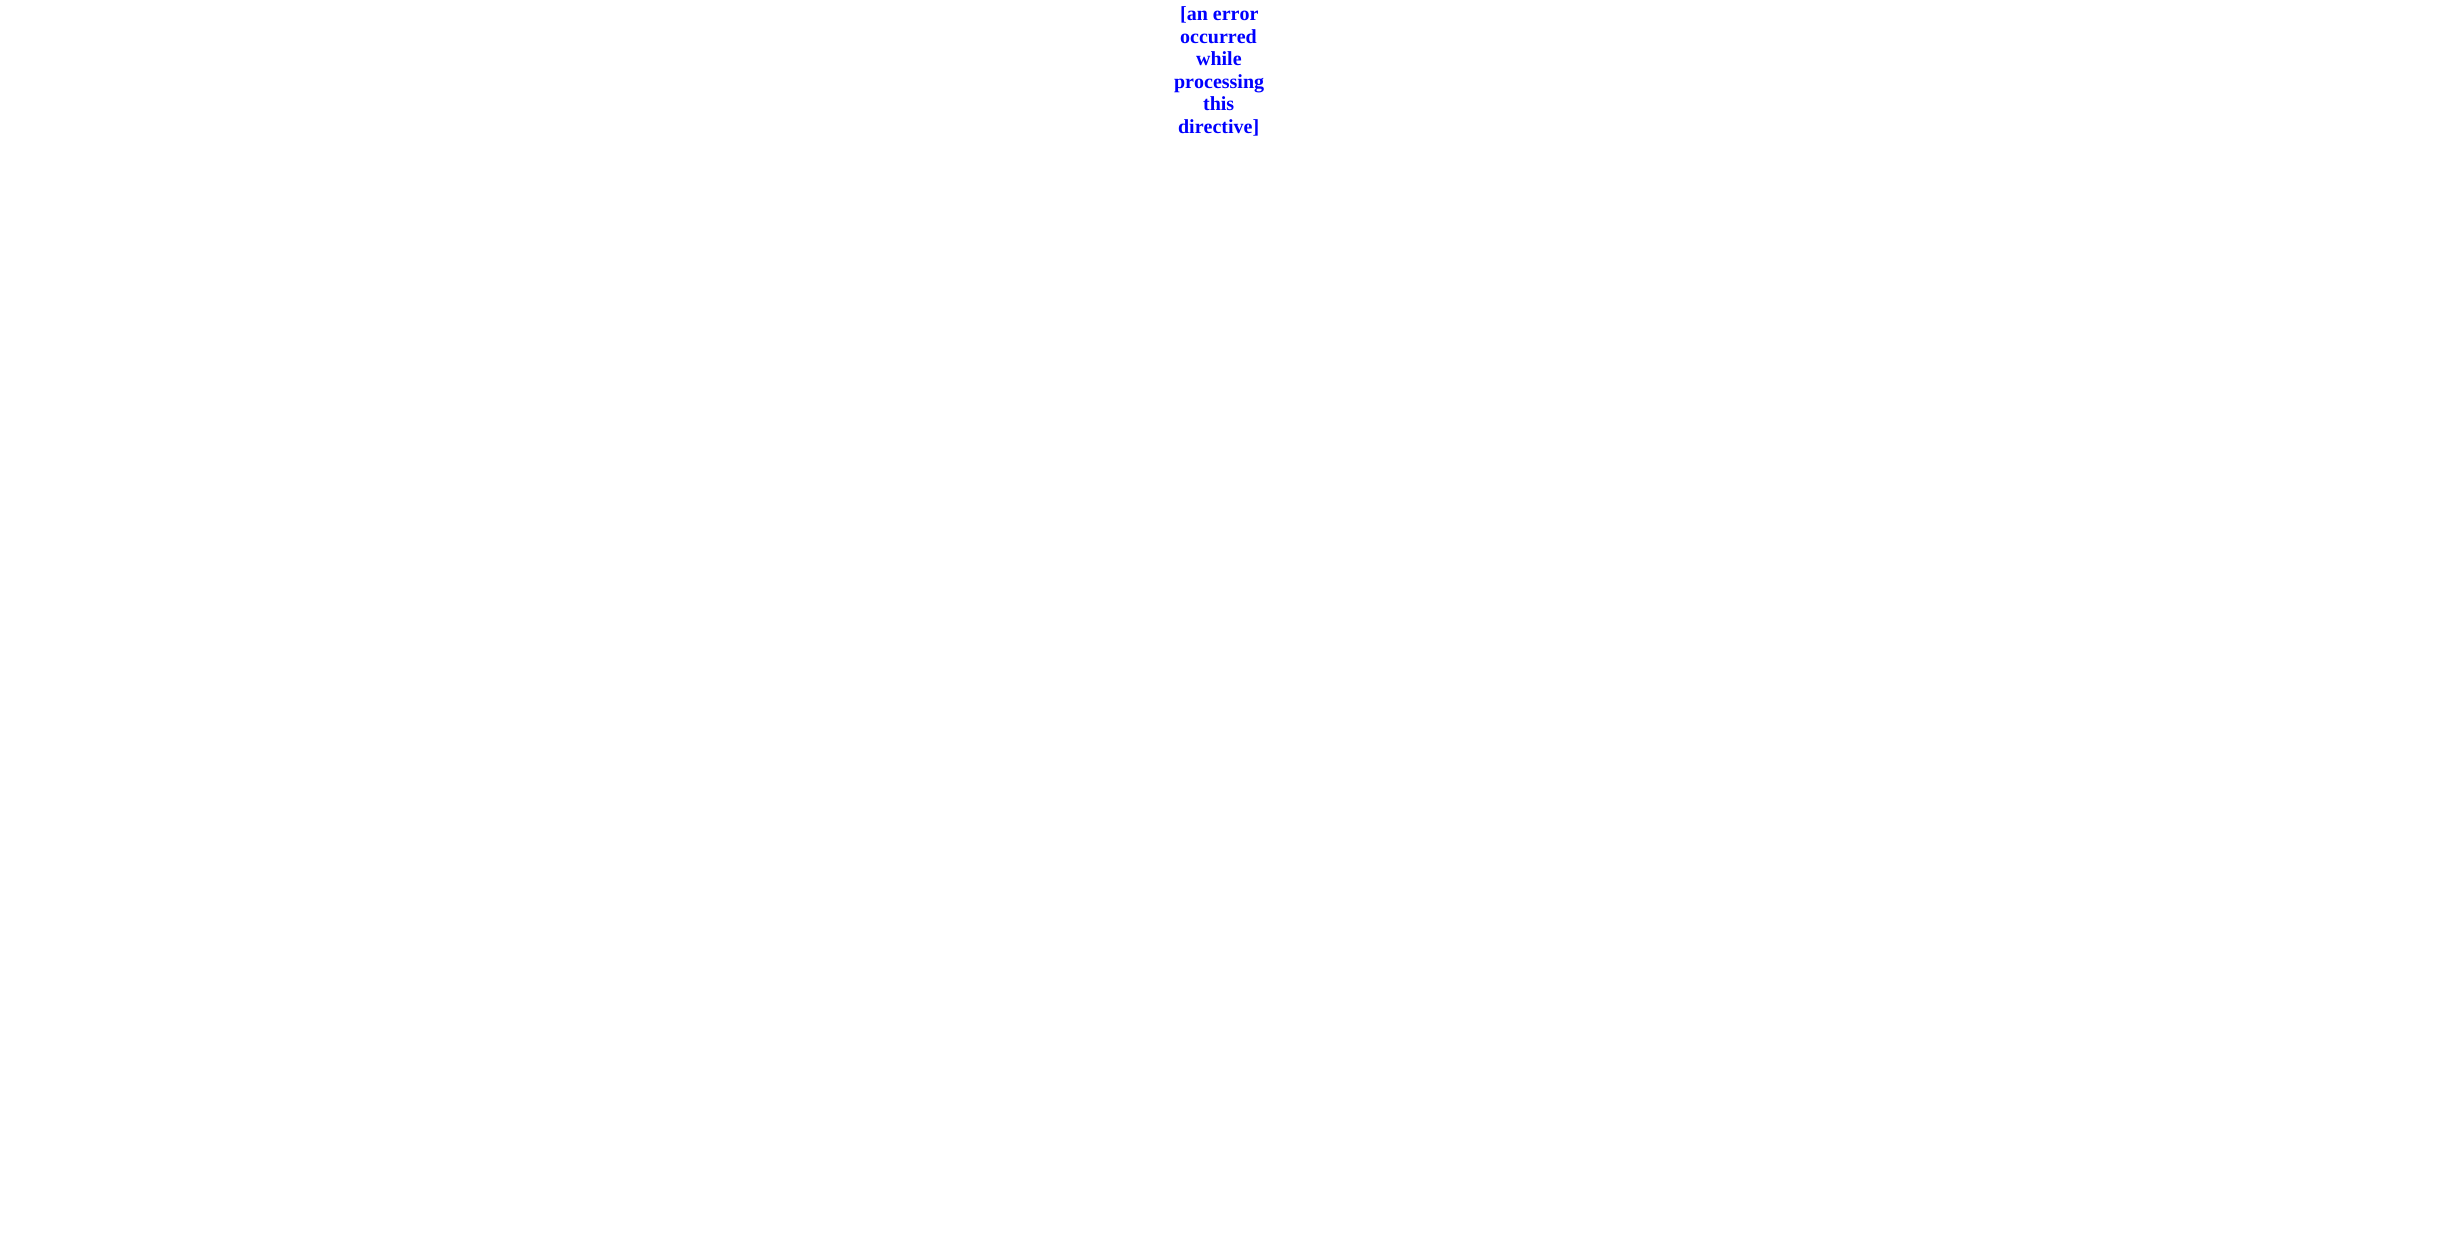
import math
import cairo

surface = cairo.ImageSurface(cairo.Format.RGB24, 2437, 1235)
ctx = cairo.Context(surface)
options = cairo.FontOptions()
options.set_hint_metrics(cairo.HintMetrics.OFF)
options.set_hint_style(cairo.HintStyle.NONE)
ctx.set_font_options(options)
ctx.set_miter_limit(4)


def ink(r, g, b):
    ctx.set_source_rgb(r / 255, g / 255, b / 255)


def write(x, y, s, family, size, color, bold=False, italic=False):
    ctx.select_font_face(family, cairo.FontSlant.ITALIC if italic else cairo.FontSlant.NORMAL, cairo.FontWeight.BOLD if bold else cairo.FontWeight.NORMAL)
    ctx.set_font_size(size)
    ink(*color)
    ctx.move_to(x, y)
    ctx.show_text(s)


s1 = dict(family="Liberation Serif", size=20, color=(0, 0, 255), bold=True)

ink(255, 255, 255)
ctx.paint()
write(1180, 20, "[an error", **s1)
write(1180, 43, "occurred", **s1)
write(1196, 65, "while", **s1)
write(1174, 88, "processing", **s1)
write(1203, 110, "this", **s1)
write(1178, 133, "directive]", **s1)
surface.write_to_png("screenshot.png")
